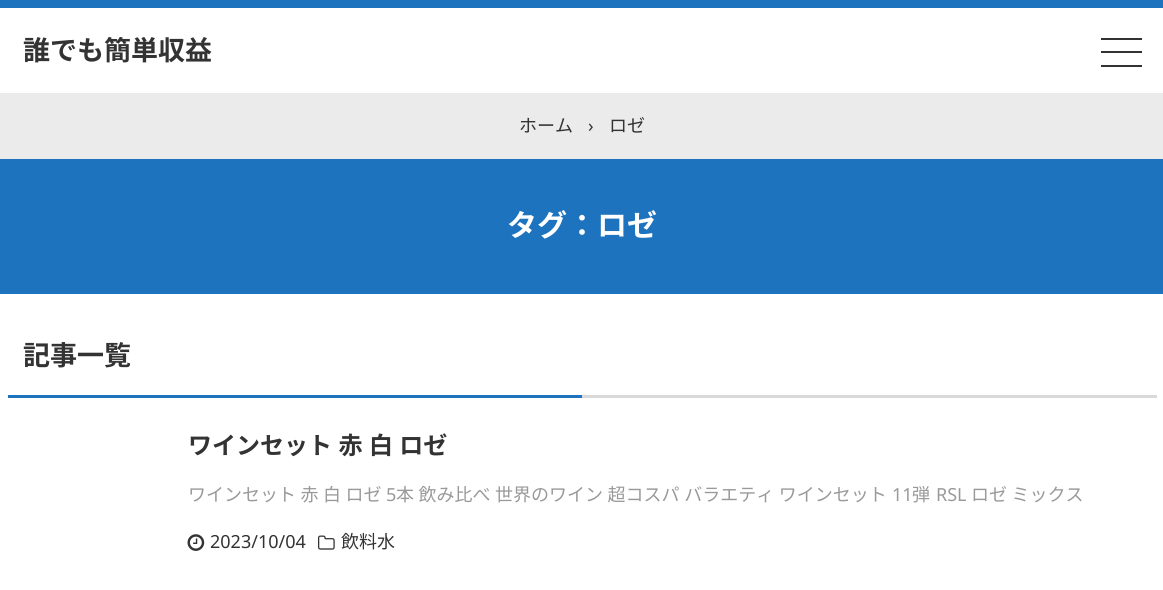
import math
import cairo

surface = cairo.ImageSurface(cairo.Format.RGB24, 1163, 590)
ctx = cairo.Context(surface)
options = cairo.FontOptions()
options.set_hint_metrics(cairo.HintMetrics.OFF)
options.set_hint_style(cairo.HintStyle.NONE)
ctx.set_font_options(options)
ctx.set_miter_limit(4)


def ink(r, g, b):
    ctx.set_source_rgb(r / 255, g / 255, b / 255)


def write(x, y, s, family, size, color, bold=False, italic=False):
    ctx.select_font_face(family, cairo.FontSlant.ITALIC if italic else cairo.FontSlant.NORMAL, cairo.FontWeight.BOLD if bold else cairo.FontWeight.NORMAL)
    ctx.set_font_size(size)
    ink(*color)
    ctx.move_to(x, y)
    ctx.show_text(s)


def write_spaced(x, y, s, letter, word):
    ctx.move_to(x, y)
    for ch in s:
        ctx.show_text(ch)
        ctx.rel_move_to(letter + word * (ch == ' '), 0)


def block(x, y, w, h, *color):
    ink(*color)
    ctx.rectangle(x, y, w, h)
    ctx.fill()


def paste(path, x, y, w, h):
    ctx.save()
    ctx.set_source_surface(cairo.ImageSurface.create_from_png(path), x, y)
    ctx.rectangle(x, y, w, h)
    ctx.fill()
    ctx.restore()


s1 = dict(family="Noto Sans CJK JP", size=27, color=(51, 51, 51), bold=True)
s2 = dict(family="Noto Sans CJK JP", size=18, color=(51, 51, 51))
s3 = dict(family="Noto Sans", size=18, color=(51, 51, 51))
s4 = dict(family="Noto Sans CJK JP", size=30, color=(255, 255, 255), bold=True)
s5 = dict(family="Noto Sans", size=18, color=(153, 153, 153))
s6 = dict(family="Noto Sans CJK JP", size=18, color=(153, 153, 153))

ink(255, 255, 255)
ctx.paint()
block(0, 0, 1163, 8, 30, 115, 190)
write(23, 60, "誰でも簡単収益", **s1)
block(1101, 51, 41, 2, 51, 51, 51)
block(1101, 38, 41, 2, 51, 51, 51)
block(1101, 65, 41, 2, 51, 51, 51)
block(0, 93, 1163, 66, 235, 235, 235)
write(519, 132, "ホーム", **s2)
write(588, 132, "›", **s3)
write(609, 132, "ロゼ", **s2)
block(0, 159, 1163, 135, 30, 115, 190)
write(507, 236, "タグ：ロゼ", **s4)
block(582, 395, 575, 3, 217, 217, 217)
write(23, 365, "記事一覧", **s1)
block(8, 395, 574, 3, 30, 115, 190)
ctx.set_font_size(24)
ink(51, 51, 51)
write_spaced(188, 454, "ワインセット 赤 白 ロゼ", 0, 1)
ctx.select_font_face("Noto Sans CJK JP")
ctx.set_font_size(18)
ink(153, 153, 153)
write_spaced(188, 501, "ワインセット 赤 白 ロゼ", 0, 0.5)
write(386, 501, "5", **s5)
ctx.select_font_face("Noto Sans CJK JP")
write_spaced(396, 501, "本 飲み比べ 世界のワイン 超コスパ バラエティ ワインセット", 0, 0.5)
write(892, 501, "11", **s5)
write(912, 501, "弾", **s6)
write(936, 501, "RSL", **s5)
ctx.select_font_face("Noto Sans CJK JP")
write_spaced(971, 501, "ロゼ ミックス", 0, 0.5)
paste("pic1.png", 187, 534, 18, 17)
write(210, 548, "2023/10/04", **s3)
paste("pic2.png", 318, 535, 17, 15)
write(341, 548, "飲料水", **s2)
surface.write_to_png("screenshot.png")
